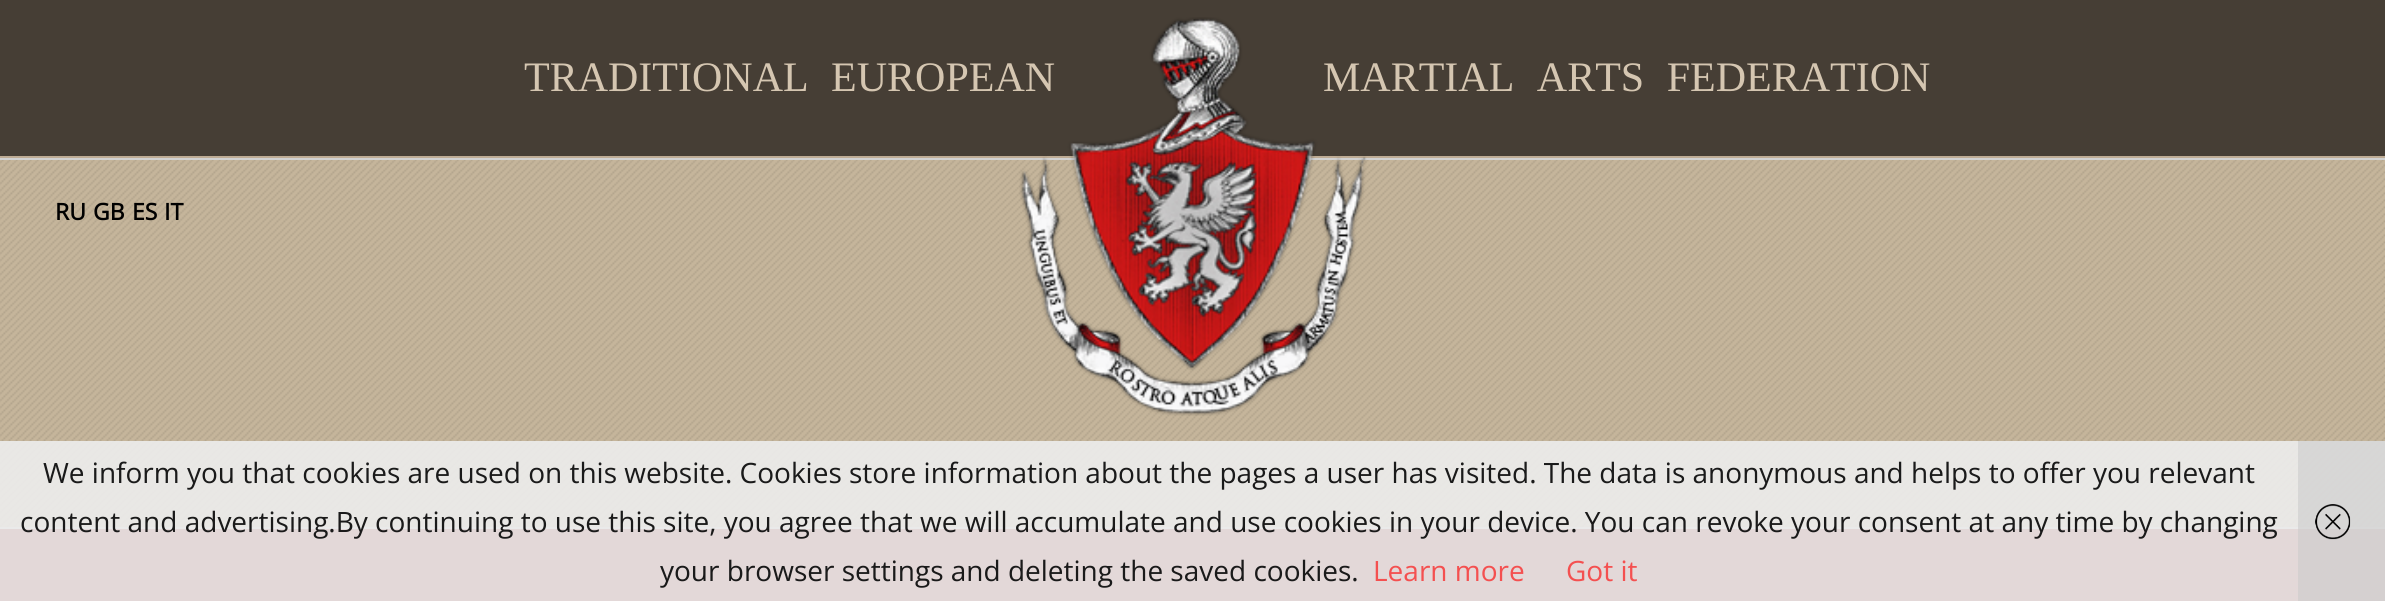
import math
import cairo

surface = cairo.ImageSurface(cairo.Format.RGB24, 2385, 601)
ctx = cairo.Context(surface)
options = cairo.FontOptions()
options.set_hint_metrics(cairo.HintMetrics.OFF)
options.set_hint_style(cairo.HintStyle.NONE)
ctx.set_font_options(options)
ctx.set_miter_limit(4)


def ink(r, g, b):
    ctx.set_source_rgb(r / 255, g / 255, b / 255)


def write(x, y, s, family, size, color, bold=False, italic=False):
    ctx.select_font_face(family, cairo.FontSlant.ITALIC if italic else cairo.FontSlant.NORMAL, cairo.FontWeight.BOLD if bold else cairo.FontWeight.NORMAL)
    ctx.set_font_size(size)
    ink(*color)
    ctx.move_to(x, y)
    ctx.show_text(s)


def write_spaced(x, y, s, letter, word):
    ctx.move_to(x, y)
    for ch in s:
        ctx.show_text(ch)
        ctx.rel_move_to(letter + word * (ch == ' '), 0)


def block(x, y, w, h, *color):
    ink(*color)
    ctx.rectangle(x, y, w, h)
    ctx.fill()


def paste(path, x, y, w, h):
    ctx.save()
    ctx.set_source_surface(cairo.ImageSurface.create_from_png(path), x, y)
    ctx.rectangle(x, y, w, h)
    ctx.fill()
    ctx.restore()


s1 = dict(family="Open Sans", size=23, color=(0, 0, 0), bold=True)
s2 = dict(family="Open Sans", size=28, color=(26, 26, 26))
s3 = dict(family="Open Sans", size=28, color=(244, 80, 80))

ink(197, 181, 155)
ctx.paint()
paste("pic1.png", 0, 160, 2385, 367)
block(0, 158, 2385, 2, 209, 209, 209)
block(0, 0, 2385, 156, 70, 62, 53)
block(0, 156, 2385, 2, 190, 172, 149)
ctx.select_font_face("Liberation Serif")
ctx.set_font_size(42)
ink(213, 198, 177)
write_spaced(524, 91, "TRADITIONAL EUROPEAN", 0, 12)
write_spaced(1323, 91, "MARTIAL ARTS FEDERATION", 0, 12)
write(55, 220, "RU", **s1)
write(93, 220, "GB", **s1)
write(132, 220, "ES", **s1)
write(164, 220, "IT", **s1)
paste("pic2.png", 1019, 17, 348, 399)
block(0, 529, 2385, 72, 128, 16, 18)
block(0, 527, 2385, 2, 209, 209, 209)
ctx.set_source_rgba(0.933, 0.933, 0.933, 0.9)
ctx.rectangle(0, 441, 2385, 160)
ctx.fill()
write(43, 483, "We inform you that cookies are used on this website. Cookies store information about the pages a user has visited. The data is anonymous and helps to offer you relevant", **s2)
write(20, 532, "content and advertising.By continuing to use this site, you agree that we will accumulate and use cookies in your device. You can revoke your consent at any time by changing", **s2)
write(660, 581, "your browser settings and deleting the saved cookies.", **s2)
write(1373, 581, "Learn more", **s3)
write(1566, 581, "Got it", **s3)
ctx.set_source_rgba(0.8, 0.8, 0.8, 0.6)
ctx.rectangle(2298, 441, 87, 160)
ctx.fill()
paste("pic3.png", 2315, 504, 36, 36)
surface.write_to_png("screenshot.png")
